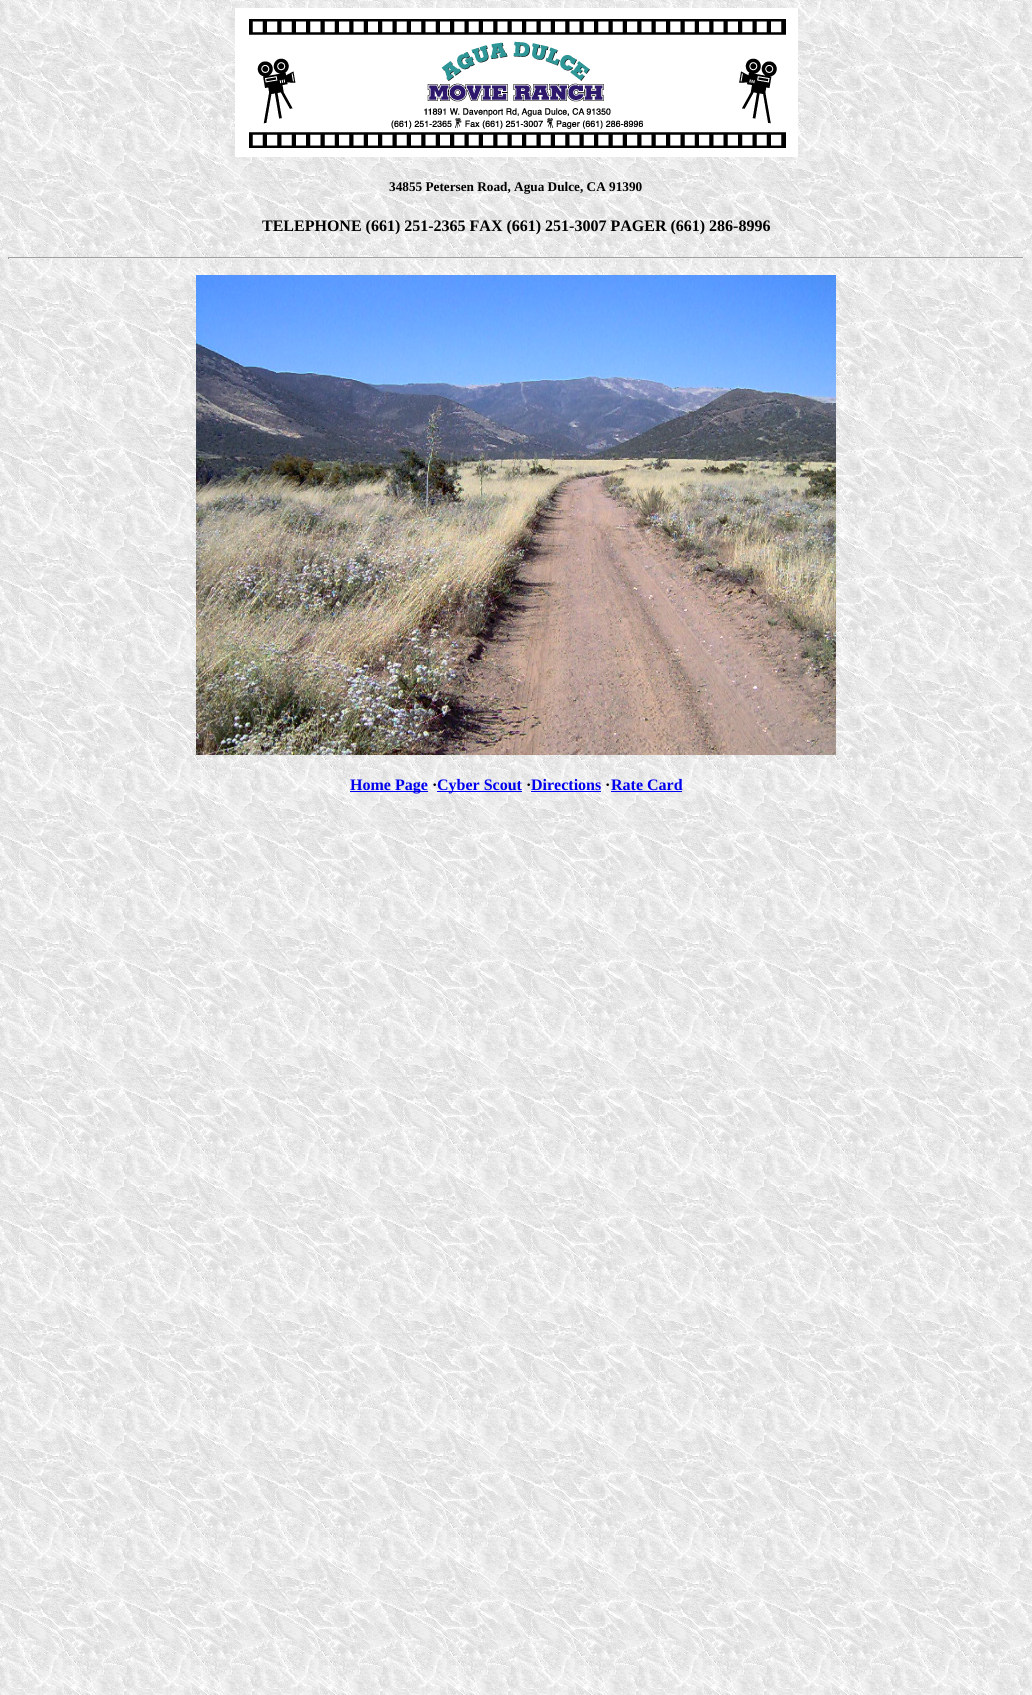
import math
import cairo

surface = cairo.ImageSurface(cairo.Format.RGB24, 1032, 1695)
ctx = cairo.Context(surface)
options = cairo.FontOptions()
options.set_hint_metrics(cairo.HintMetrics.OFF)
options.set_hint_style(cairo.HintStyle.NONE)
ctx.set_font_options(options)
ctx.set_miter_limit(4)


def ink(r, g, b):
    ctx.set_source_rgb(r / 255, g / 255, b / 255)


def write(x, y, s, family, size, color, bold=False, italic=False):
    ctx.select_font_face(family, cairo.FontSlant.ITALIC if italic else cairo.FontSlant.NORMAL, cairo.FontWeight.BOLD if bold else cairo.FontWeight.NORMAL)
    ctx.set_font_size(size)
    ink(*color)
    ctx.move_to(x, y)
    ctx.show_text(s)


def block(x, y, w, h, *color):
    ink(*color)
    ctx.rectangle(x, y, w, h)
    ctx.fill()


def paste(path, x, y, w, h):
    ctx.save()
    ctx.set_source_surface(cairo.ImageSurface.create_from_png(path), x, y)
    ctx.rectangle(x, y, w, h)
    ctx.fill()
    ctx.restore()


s1 = dict(family="Liberation Serif", size=13.25, color=(0, 0, 0), bold=True)
s2 = dict(family="Liberation Serif", size=16, color=(0, 0, 0), bold=True)
s3 = dict(family="Liberation Serif", size=16, color=(0, 0, 238), bold=True)

ink(255, 255, 255)
ctx.paint()
paste("pic1.png", 0, 0, 1032, 1695)
paste("pic2.png", 235, 8, 563, 149)
write(389, 191, "34855 Petersen Road, Agua Dulce, CA 91390", **s1)
write(262, 231, "TELEPHONE (661) 251-2365 FAX (661) 251-3007 PAGER (661) 286-8996", **s2)
block(8, 257, 1016, 1, 159, 159, 159)
block(1023, 257, 1, 2, 238, 238, 238)
block(8, 258, 1016, 1, 238, 238, 238)
block(8, 257, 1, 2, 159, 159, 159)
paste("pic3.png", 196, 275, 640, 480)
block(350, 791, 78, 1, 0, 0, 238)
write(350, 790, "Home Page", **s3)
write(432, 790, "·", **s2)
block(437, 791, 85, 1, 0, 0, 238)
write(437, 790, "Cyber Scout", **s3)
write(526, 790, "·", **s2)
write(531, 790, "Directions", **s3)
block(531, 791, 70, 1, 0, 0, 238)
write(605, 790, "·", **s2)
write(611, 790, "Rate Card", **s3)
block(611, 791, 71, 1, 0, 0, 238)
surface.write_to_png("screenshot.png")
